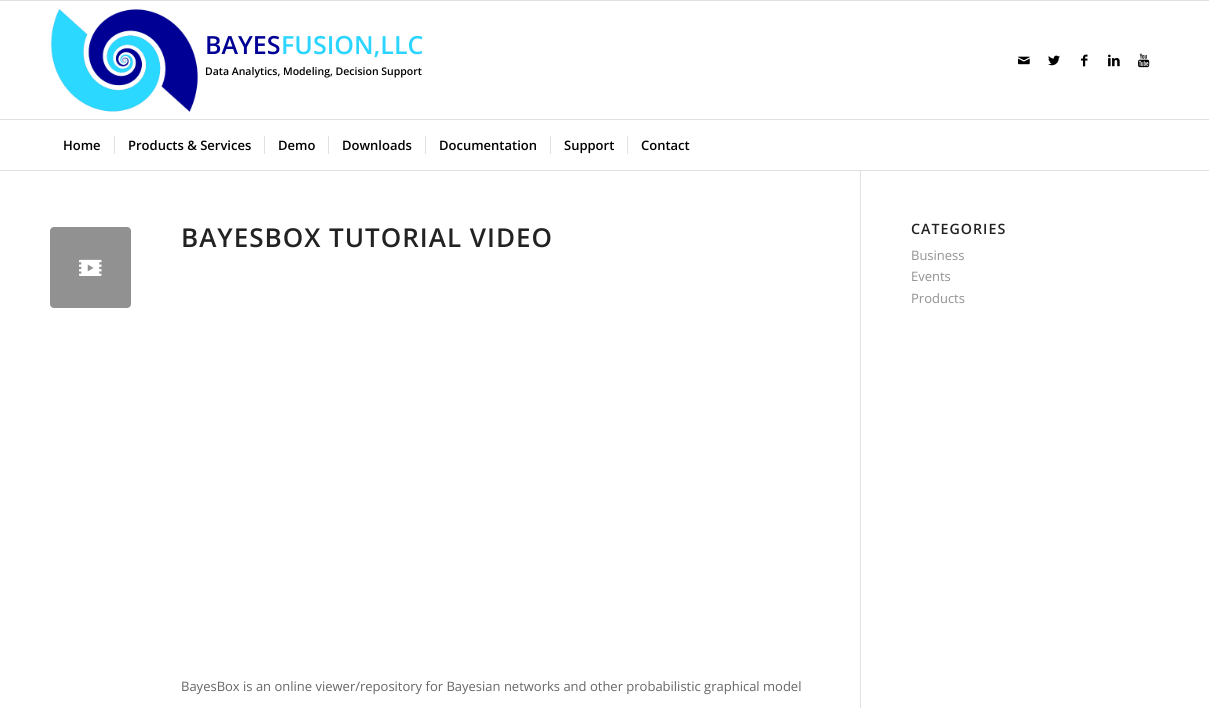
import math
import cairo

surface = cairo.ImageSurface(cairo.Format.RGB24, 1209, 708)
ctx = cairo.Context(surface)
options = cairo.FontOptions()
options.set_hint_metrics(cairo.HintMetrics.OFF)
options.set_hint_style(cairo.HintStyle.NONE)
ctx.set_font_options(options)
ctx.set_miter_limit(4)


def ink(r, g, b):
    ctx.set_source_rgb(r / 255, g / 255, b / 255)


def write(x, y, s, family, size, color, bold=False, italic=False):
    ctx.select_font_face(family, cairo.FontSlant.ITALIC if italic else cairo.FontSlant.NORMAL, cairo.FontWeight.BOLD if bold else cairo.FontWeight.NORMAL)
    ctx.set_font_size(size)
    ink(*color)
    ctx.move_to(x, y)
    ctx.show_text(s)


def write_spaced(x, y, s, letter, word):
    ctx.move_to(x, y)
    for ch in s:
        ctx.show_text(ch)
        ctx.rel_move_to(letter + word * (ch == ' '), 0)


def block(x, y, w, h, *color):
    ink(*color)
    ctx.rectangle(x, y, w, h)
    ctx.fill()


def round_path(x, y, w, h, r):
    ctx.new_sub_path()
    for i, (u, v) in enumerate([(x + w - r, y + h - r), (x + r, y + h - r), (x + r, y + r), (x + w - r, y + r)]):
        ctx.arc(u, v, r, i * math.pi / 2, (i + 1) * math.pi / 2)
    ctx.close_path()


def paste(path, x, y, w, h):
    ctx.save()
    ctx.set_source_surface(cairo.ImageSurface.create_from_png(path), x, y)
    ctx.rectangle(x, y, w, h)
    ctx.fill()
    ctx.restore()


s1 = dict(family="Open Sans SemiBold", size=25, color=(0, 0, 148))
s2 = dict(family="Open Sans SemiBold", size=25, color=(43, 213, 255))
s3 = dict(family="Open Sans SemiBold", size=10.5, color=(0, 0, 0))
s4 = dict(family="Open Sans SemiBold", size=13, color=(0, 0, 0))
s5 = dict(family="Open Sans", size=13, color=(102, 102, 102))
s6 = dict(family="Open Sans", size=13, color=(145, 145, 145))

ink(255, 255, 255)
ctx.paint()
block(0, 0, 1209, 1, 225, 225, 225)
block(0, 170, 1209, 1, 225, 225, 225)
paste("pic1.png", 50, 9, 148, 103)
write(205, 54, "BAYES", **s1)
write(281, 54, "FUSION,LLC", **s2)
write(205, 75, "Data Analytics, Modeling, Decision Support", **s3)
paste("pic2.png", 1018, 56, 12, 9)
paste("pic3.png", 1048, 55, 12, 11)
paste("pic4.png", 1081, 54, 7, 13)
paste("pic5.png", 1108, 54, 12, 13)
paste("pic6.png", 1138, 53, 12, 15)
block(0, 119, 1209, 1, 225, 225, 225)
write(63, 150, "Home", **s4)
write(128, 150, "Products & Services", **s4)
block(114, 136, 1, 18, 225, 225, 225)
write(278, 150, "Demo", **s4)
block(264, 136, 1, 18, 225, 225, 225)
write(342, 150, "Downloads", **s4)
block(328, 136, 1, 18, 225, 225, 225)
write(439, 150, "Documentation", **s4)
block(425, 136, 1, 18, 225, 225, 225)
write(564, 150, "Support", **s4)
block(550, 136, 1, 18, 225, 225, 225)
write(641, 150, "Contact", **s4)
block(627, 136, 1, 18, 225, 225, 225)
block(860, 171, 1, 537, 225, 225, 225)
ink(145, 145, 145)
round_path(50, 227, 81, 81, 4)
ctx.fill()
paste("pic7.png", 79, 259, 23, 17)
ctx.set_font_size(26)
ink(34, 34, 34)
write_spaced(181, 247, "BAYESBOX TUTORIAL VIDEO", 1, 0)
write(181, 691, "BayesBox is an online viewer/repository for Bayesian networks and other probabilistic graphical model", **s5)
ctx.select_font_face("Open Sans SemiBold")
ctx.set_font_size(14.25)
ink(34, 34, 34)
write_spaced(911, 234, "CATEGORIES", 1, 0)
write(911, 260, "Business", **s6)
write(911, 281, "Events", **s6)
write(911, 303, "Products", **s6)
surface.write_to_png("screenshot.png")
